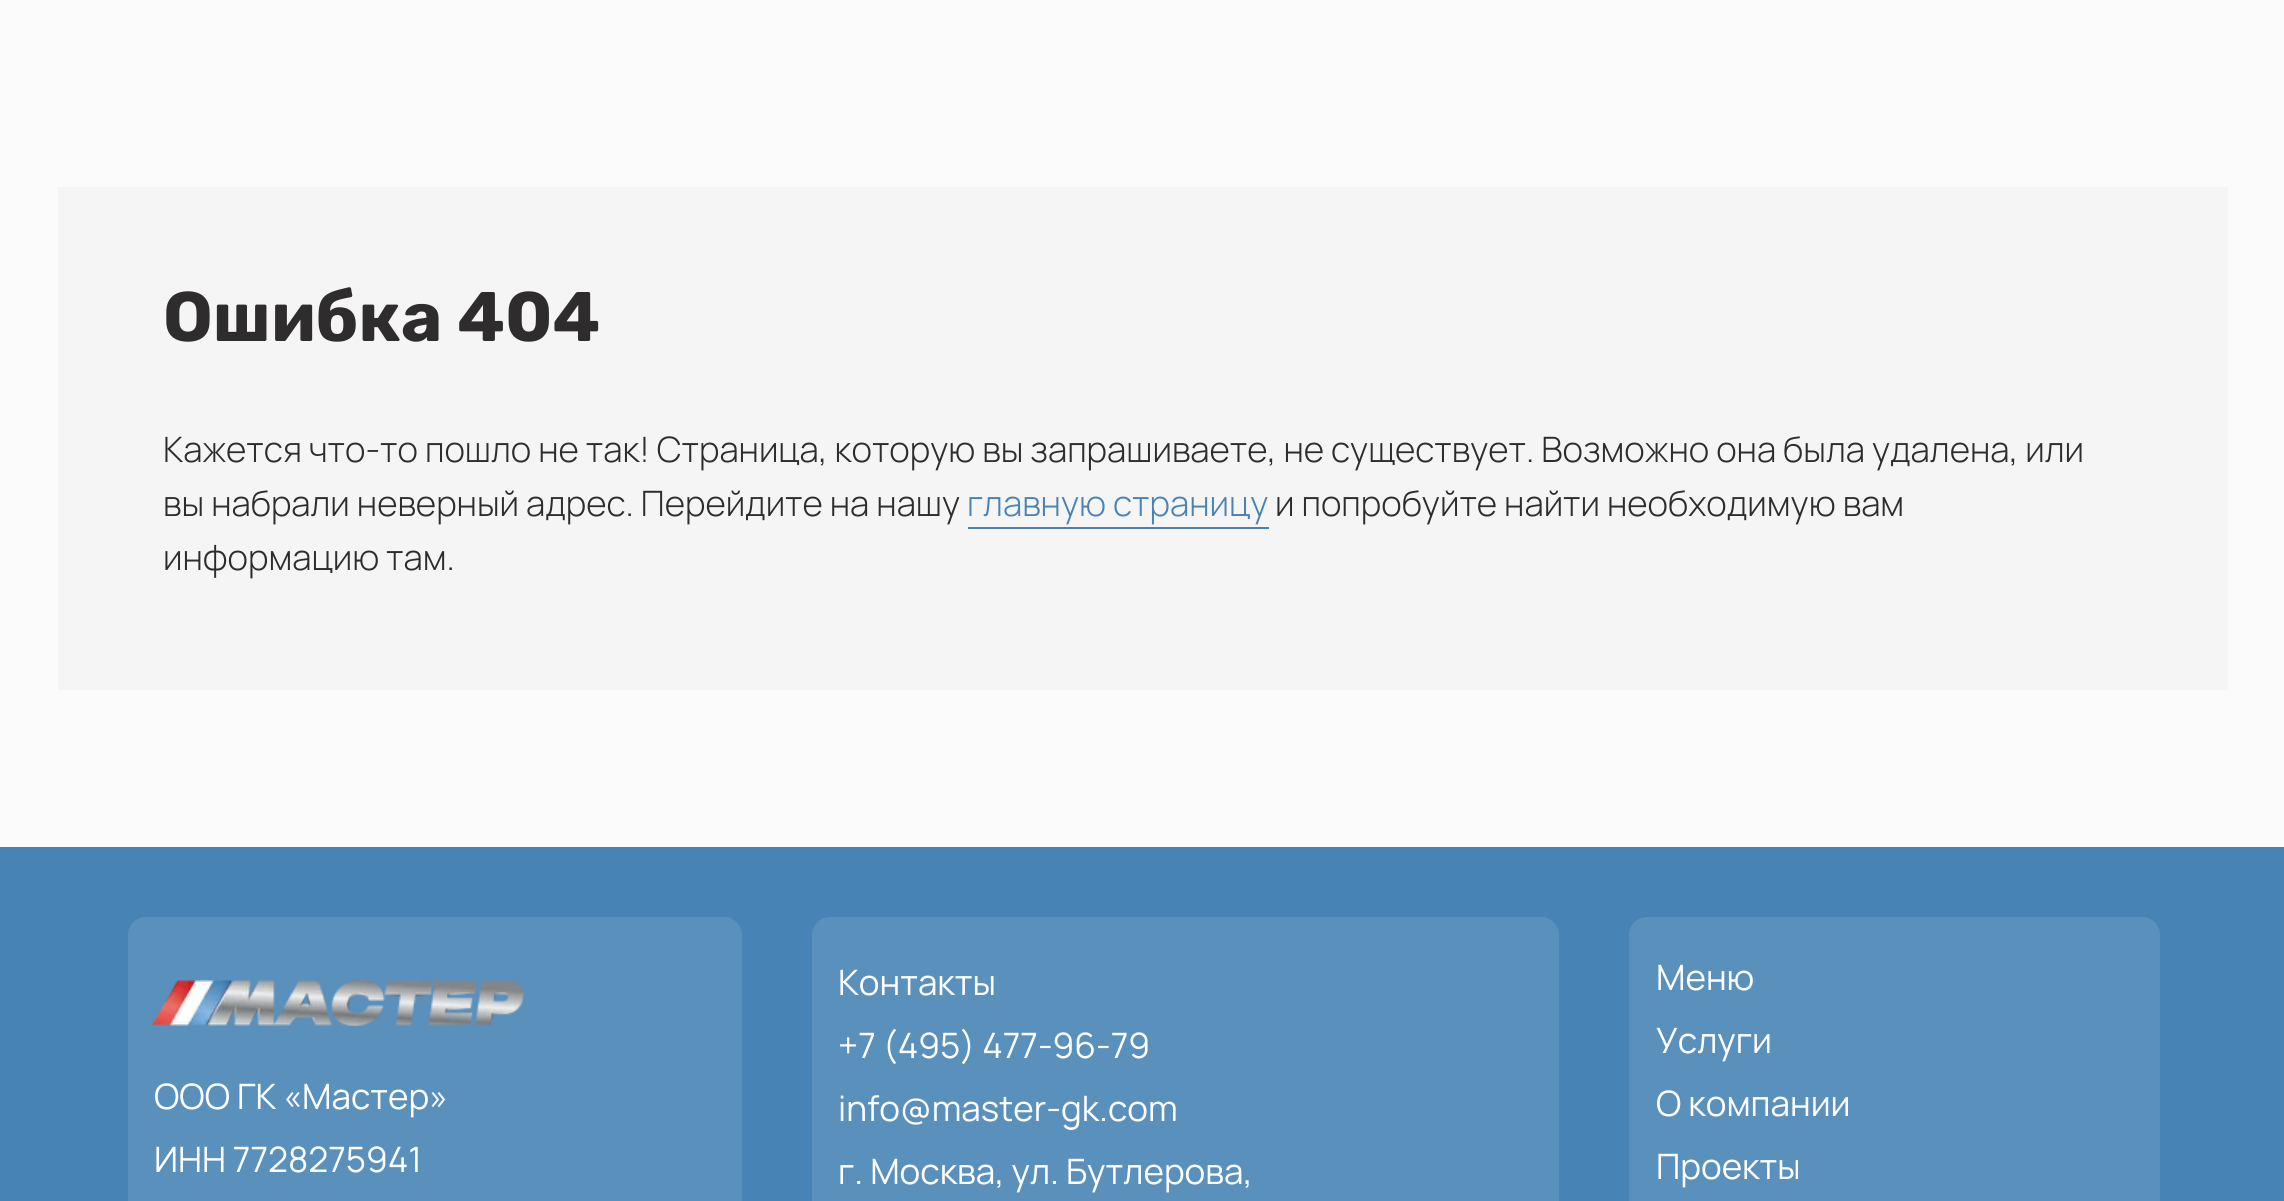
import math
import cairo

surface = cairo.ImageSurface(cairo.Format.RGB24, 2284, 1201)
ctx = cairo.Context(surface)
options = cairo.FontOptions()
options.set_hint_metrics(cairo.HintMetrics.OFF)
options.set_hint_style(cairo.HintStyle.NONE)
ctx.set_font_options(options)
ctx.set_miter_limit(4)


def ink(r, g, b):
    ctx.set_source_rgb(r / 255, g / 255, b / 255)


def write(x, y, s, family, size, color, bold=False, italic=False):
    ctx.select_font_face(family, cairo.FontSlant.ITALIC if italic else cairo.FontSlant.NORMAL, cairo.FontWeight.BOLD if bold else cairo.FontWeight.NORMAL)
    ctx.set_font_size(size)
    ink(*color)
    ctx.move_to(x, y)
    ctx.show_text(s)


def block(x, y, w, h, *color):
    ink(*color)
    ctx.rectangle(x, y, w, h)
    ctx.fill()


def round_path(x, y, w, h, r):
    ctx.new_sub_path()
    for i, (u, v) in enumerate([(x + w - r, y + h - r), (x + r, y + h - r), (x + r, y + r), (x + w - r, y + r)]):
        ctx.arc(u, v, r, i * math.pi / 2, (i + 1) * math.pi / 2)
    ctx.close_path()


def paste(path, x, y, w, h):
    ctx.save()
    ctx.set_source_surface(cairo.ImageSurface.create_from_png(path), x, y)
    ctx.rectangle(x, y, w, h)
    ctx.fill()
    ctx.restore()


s1 = dict(family="Rubik", size=70, color=(46, 44, 44), bold=True)
s2 = dict(family="Manrope Light", size=35, color=(46, 44, 44))
s3 = dict(family="Manrope Light", size=35, color=(72, 131, 181))
s4 = dict(family="Manrope", size=35, color=(255, 255, 255))

ink(251, 251, 251)
ctx.paint()
block(58, 187, 2170, 503, 245, 245, 245)
write(163, 341, "Ошибка 404", **s1)
write(163, 462, "Кажется что-то пошло не так! Страница, которую вы запрашиваете, не существует. Возможно она была удалена, или", **s2)
write(163, 516, "вы набрали неверный адрес. Перейдите на нашу", **s2)
write(967, 516, "главную страницу", **s3)
block(968, 527, 301, 2, 72, 131, 181)
write(1275, 516, "и попробуйте найти необходимую вам", **s2)
write(163, 570, "информацию там.", **s2)
block(0, 847, 2284, 354, 72, 131, 181)
ink(90, 144, 188)
round_path(128, 917, 614, 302, 18)
ctx.fill()
round_path(812, 917, 747, 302, 18)
ctx.fill()
round_path(1629, 917, 531, 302, 18)
ctx.fill()
paste("pic1.png", 152, 980, 372, 46)
write(838, 995, "Контакты", **s4)
write(1656, 990, "Меню", **s4)
write(838, 1058, "+7 (495) 477-96-79", **s4)
write(1656, 1053, "Услуги", **s4)
write(154, 1109, "ООО ГК «Мастер»", **s4)
write(838, 1121, "info@master-gk.com", **s4)
write(1656, 1116, "О компании", **s4)
write(154, 1172, "ИНН 7728275941", **s4)
write(838, 1184, "г. Москва, ул. Бутлерова,", **s4)
write(1656, 1179, "Проекты", **s4)
surface.write_to_png("screenshot.png")
